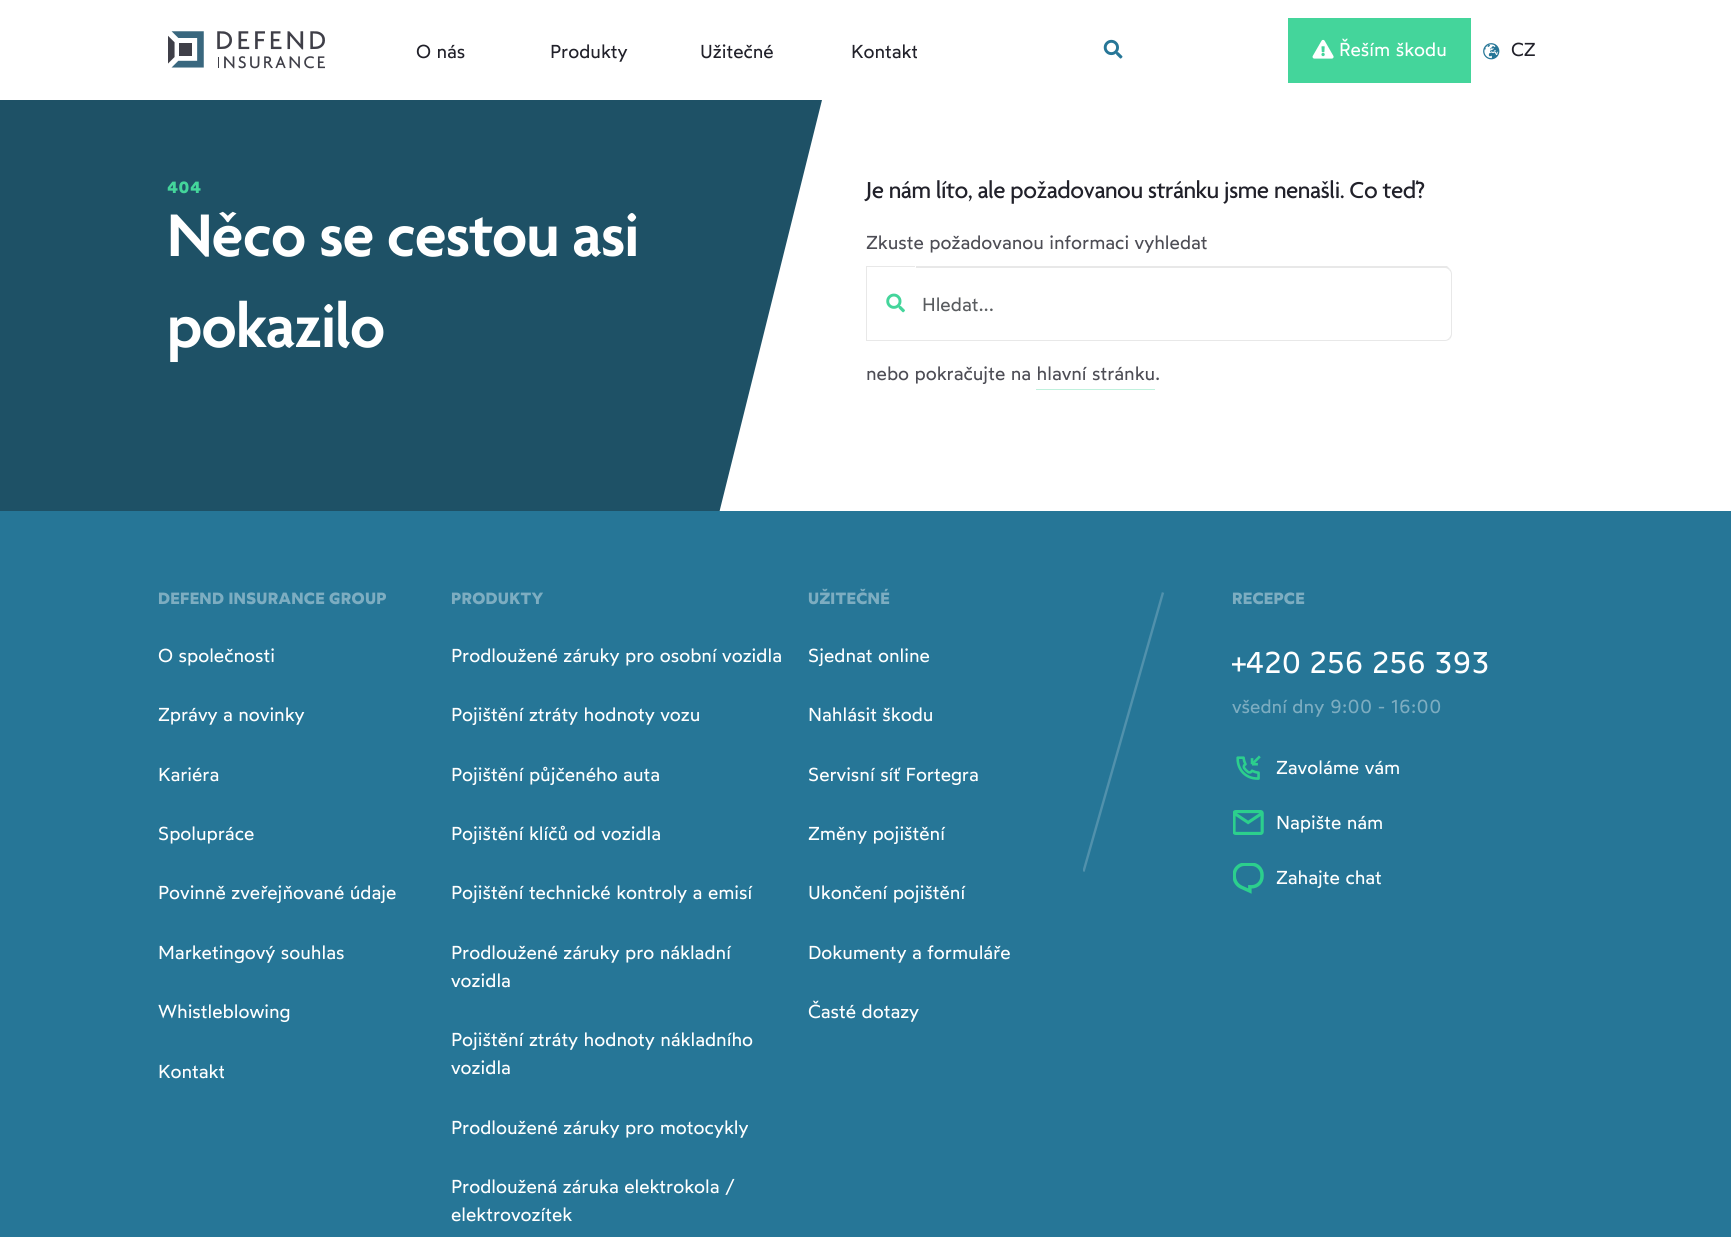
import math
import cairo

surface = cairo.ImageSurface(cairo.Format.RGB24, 1731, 1237)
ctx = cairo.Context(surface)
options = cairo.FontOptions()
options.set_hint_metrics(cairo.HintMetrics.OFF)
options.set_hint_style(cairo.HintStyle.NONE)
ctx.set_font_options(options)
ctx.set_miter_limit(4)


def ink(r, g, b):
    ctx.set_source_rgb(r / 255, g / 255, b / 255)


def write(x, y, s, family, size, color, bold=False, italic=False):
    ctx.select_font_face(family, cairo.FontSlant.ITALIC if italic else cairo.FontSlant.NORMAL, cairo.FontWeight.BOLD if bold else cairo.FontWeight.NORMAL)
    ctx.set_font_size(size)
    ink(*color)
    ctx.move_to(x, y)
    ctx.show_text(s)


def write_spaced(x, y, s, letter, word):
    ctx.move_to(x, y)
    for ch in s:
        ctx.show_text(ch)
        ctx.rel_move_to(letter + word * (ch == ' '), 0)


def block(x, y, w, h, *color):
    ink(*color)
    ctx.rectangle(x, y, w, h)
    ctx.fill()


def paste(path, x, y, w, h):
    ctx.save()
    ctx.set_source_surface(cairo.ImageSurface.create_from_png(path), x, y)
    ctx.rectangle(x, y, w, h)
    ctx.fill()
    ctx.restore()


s1 = dict(family="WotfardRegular", size=18.75, color=(33, 33, 42))
s2 = dict(family="WotfardRegular", size=18.75, color=(255, 255, 255))
s3 = dict(family="WotfardRegular", size=18.75, color=(77, 77, 85))
s4 = dict(family="WotfardRegular", size=18.75, color=(89, 92, 95))
s5 = dict(family="WotfardRegular", size=18.75, color=(125, 173, 193))

ink(255, 255, 255)
ctx.paint()
paste("pic1.png", 168, 31, 157, 38)
write(416, 58, "O nás", **s1)
write(550, 58, "Produkty", **s1)
write(700, 58, "Užitečné", **s1)
write(851, 58, "Kontakt", **s1)
paste("pic2.png", 1103, 39, 20, 20)
block(1288, 18, 183, 65, 68, 213, 155)
paste("pic3.png", 1312, 39, 22, 20)
write(1339, 56, "Řeším škodu", **s2)
paste("pic4.png", 1483, 43, 17, 17)
write(1511, 56, "CZ", **s1)
ink(30, 81, 102)
ctx.new_path()
ctx.move_to(-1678, 100)
ctx.line_to(822, 100)
ctx.line_to(604, 975)
ctx.line_to(-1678, 975)
ctx.close_path()
ctx.fill()
ctx.select_font_face("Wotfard", cairo.FontSlant.NORMAL, cairo.FontWeight.BOLD)
ctx.set_font_size(16.25)
ink(68, 213, 155)
write_spaced(167, 193, "404", 0.3, 0)
ctx.select_font_face("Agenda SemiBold")
ctx.set_font_size(65)
ink(255, 255, 255)
write_spaced(167, 256, "Něco se cestou asi", -1.25, 0)
write_spaced(167, 347, "pokazilo", -1.25, 0)
ctx.select_font_face("Agenda Medium")
ctx.set_font_size(25)
ink(33, 33, 42)
write_spaced(866, 198, "Je nám líto, ale požadovanou stránku jsme nenašli. Co teď?", -0.5, 0)
write(866, 249, "Zkuste požadovanou informaci vyhledat", **s3)
ink(232, 232, 232)
ctx.new_path()
ctx.move_to(908, 267)
ctx.line_to(908, 266)
ctx.line_to(1447, 266)
ctx.line_to(1450, 269)
ctx.line_to(1449, 270)
ctx.curve_to(1448, 269, 1447, 268, 1445, 268)
ctx.line_to(909, 268)
ctx.close_path()
ctx.fill()
block(908, 267, 7, 1, 255, 255, 255)
block(866, 266, 50, 1, 232, 232, 232)
ctx.new_path()
ctx.move_to(1450, 269)
ctx.curve_to(1451, 270, 1452, 272, 1452, 274)
ctx.line_to(1452, 334)
ctx.curve_to(1452, 336, 1451, 338, 1450, 339)
ctx.line_to(1449, 338)
ctx.curve_to(1450, 337, 1451, 335, 1451, 334)
ctx.line_to(1451, 274)
ctx.curve_to(1451, 272, 1450, 271, 1449, 270)
ctx.close_path()
ctx.fill()
ctx.new_path()
ctx.move_to(1450, 339)
ctx.curve_to(1449, 340, 1447, 341, 1445, 341)
ctx.line_to(908, 341)
ctx.line_to(909, 340)
ctx.line_to(1445, 340)
ctx.curve_to(1447, 340, 1448, 339, 1449, 338)
ctx.close_path()
ctx.fill()
block(915, 266, 1, 75, 255, 255, 255)
block(866, 340, 50, 1, 232, 232, 232)
block(866, 266, 1, 75, 232, 232, 232)
paste("pic5.png", 886, 293, 19, 20)
write(922, 311, "Hledat...", **s4)
write(866, 380, "nebo pokračujte na hlavní stránku.", **s3)
block(1036, 389, 119, 1, 192, 241, 221)
block(0, 511, 1731, 726, 38, 118, 151)
ctx.select_font_face("Wotfard", cairo.FontSlant.NORMAL, cairo.FontWeight.BOLD)
ctx.set_font_size(16.25)
ink(125, 173, 193)
write_spaced(158, 604, "DEFEND INSURANCE GROUP", 0.3, 0)
write(158, 662, "O společnosti", **s2)
write(158, 721, "Zprávy a novinky", **s2)
write(158, 781, "Kariéra", **s2)
write(158, 840, "Spolupráce", **s2)
write(158, 899, "Povinně zveřejňované údaje", **s2)
write(158, 959, "Marketingový souhlas", **s2)
write(158, 1018, "Whistleblowing", **s2)
write(158, 1078, "Kontakt", **s2)
ctx.select_font_face("Wotfard", cairo.FontSlant.NORMAL, cairo.FontWeight.BOLD)
ctx.set_font_size(16.25)
ink(125, 173, 193)
write_spaced(451, 604, "PRODUKTY", 0.3, 0)
write(451, 662, "Prodloužené záruky pro osobní vozidla", **s2)
write(451, 721, "Pojištění ztráty hodnoty vozu", **s2)
write(451, 781, "Pojištění půjčeného auta", **s2)
write(451, 840, "Pojištění klíčů od vozidla", **s2)
write(451, 899, "Pojištění technické kontroly a emisí", **s2)
write(451, 959, "Prodloužené záruky pro nákladní", **s2)
write(451, 987, "vozidla", **s2)
write(451, 1046, "Pojištění ztráty hodnoty nákladního", **s2)
write(451, 1074, "vozidla", **s2)
write(451, 1134, "Prodloužené záruky pro motocykly", **s2)
write(451, 1193, "Prodloužená záruka elektrokola /", **s2)
write(451, 1221, "elektrovozítek", **s2)
ctx.select_font_face("Wotfard", cairo.FontSlant.NORMAL, cairo.FontWeight.BOLD)
ctx.set_font_size(16.25)
ink(125, 173, 193)
write_spaced(808, 604, "UŽITEČNÉ", 0.3, 0)
write(808, 662, "Sjednat online", **s2)
write(808, 721, "Nahlásit škodu", **s2)
write(808, 781, "Servisní síť Fortegra", **s2)
write(808, 840, "Změny pojištění", **s2)
write(808, 899, "Ukončení pojištění", **s2)
write(808, 959, "Dokumenty a formuláře", **s2)
write(808, 1018, "Časté dotazy", **s2)
ctx.save()
ctx.rectangle(1083, 591, 82, 282)
ctx.clip()
ctx.new_path()
ctx.move_to(1163, 592.5)
ctx.line_to(1083.5, 871.5)
ink(81, 145, 172)
ctx.set_line_width(2.4)
ctx.stroke()
ctx.restore()
ctx.select_font_face("Wotfard", cairo.FontSlant.NORMAL, cairo.FontWeight.BOLD)
ctx.set_font_size(16.25)
ink(125, 173, 193)
write_spaced(1232, 604, "RECEPCE", 0.3, 0)
ctx.select_font_face("WotfardRegular")
ctx.set_font_size(30)
ink(255, 255, 255)
write_spaced(1232, 673, "+420 256 256 393", -0.6, 0)
write(1232, 713, "všední dny 9:00 - 16:00", **s5)
paste("pic6.png", 1236, 755, 25, 25)
write(1276, 774, "Zavoláme vám", **s2)
paste("pic7.png", 1233, 810, 31, 25)
write(1276, 829, "Napište nám", **s2)
paste("pic8.png", 1233, 863, 31, 31)
write(1276, 884, "Zahajte chat", **s2)
surface.write_to_png("screenshot.png")
